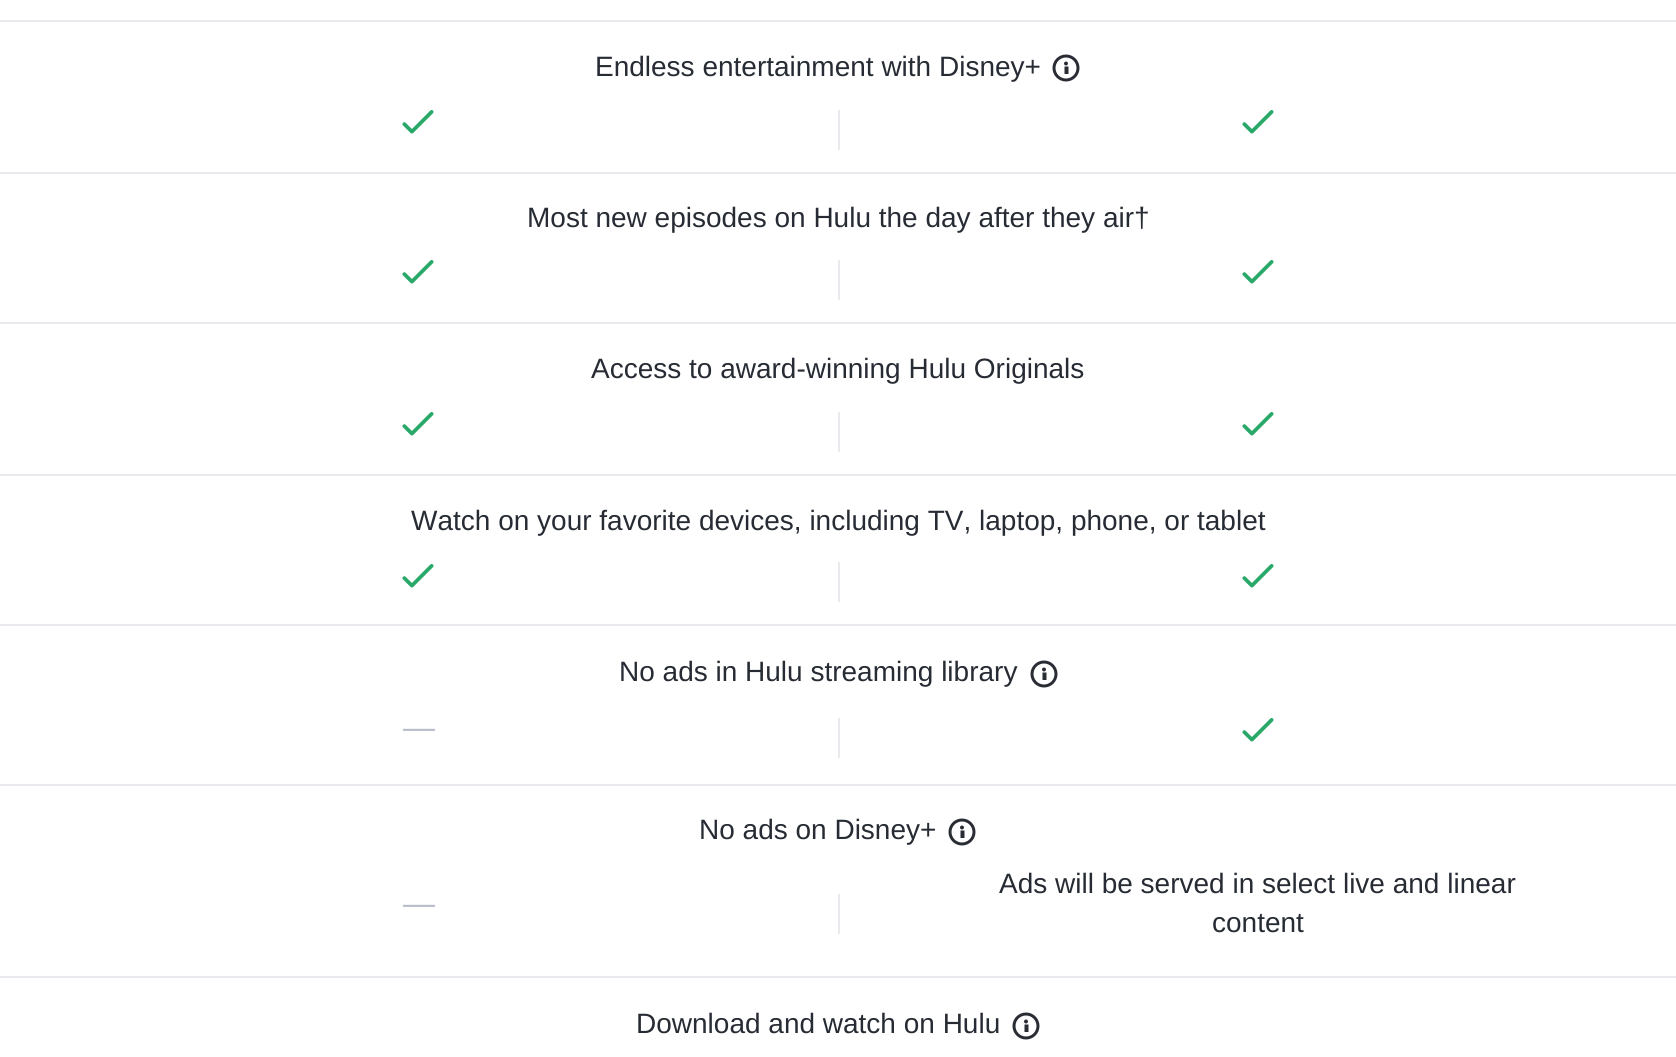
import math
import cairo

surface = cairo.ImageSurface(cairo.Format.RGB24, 1676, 1057)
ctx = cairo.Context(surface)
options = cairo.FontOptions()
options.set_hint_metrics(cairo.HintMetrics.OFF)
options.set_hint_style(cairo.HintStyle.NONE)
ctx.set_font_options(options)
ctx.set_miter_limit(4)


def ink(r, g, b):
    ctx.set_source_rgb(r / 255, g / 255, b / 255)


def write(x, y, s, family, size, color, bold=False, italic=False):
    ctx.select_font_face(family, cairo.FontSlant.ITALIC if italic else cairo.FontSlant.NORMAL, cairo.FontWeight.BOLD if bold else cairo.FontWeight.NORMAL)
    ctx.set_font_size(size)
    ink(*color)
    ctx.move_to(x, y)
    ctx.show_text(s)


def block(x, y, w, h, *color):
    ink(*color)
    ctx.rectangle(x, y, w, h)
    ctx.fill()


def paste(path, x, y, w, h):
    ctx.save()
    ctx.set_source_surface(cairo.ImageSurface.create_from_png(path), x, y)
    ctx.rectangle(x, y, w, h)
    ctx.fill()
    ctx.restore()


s1 = dict(family="Liberation Sans", size=28, color=(39, 44, 52))
s2 = dict(family="Liberation Sans", size=32, color=(184, 190, 204))

ink(255, 255, 255)
ctx.paint()
block(0, 20, 1676, 2, 232, 234, 237)
block(0, 172, 1676, 2, 232, 234, 237)
write(595, 76, "Endless entertainment with Disney+", **s1)
paste("pic1.png", 1052, 54, 28, 28)
paste("pic2.png", 402, 110, 32, 24)
block(838, 110, 2, 40, 232, 234, 237)
paste("pic2.png", 1242, 110, 32, 24)
block(0, 322, 1676, 2, 232, 234, 237)
write(527, 227, "Most new episodes on Hulu the day after they air†", **s1)
paste("pic2.png", 402, 260, 32, 24)
block(838, 260, 2, 40, 232, 234, 237)
paste("pic2.png", 1242, 260, 32, 24)
block(0, 474, 1676, 2, 232, 234, 237)
write(591, 378, "Access to award-winning Hulu Originals", **s1)
paste("pic2.png", 402, 412, 32, 24)
block(838, 412, 2, 40, 232, 234, 237)
paste("pic2.png", 1242, 412, 32, 24)
block(0, 624, 1676, 2, 232, 234, 237)
write(411, 530, "Watch on your favorite devices, including TV, laptop, phone, or tablet", **s1)
paste("pic2.png", 402, 564, 32, 24)
block(838, 562, 2, 40, 232, 234, 237)
paste("pic2.png", 1242, 564, 32, 24)
block(0, 784, 1676, 2, 232, 234, 237)
write(619, 681, "No ads in Hulu streaming library", **s1)
paste("pic1.png", 1030, 660, 28, 28)
write(403, 738, "—", **s2)
block(838, 718, 2, 40, 232, 234, 237)
paste("pic2.png", 1242, 718, 32, 24)
block(0, 976, 1676, 2, 232, 234, 237)
write(699, 839, "No ads on Disney+", **s1)
paste("pic1.png", 948, 818, 28, 28)
write(403, 914, "—", **s2)
block(838, 894, 2, 40, 232, 234, 237)
write(999, 893, "Ads will be served in select live and linear", **s1)
write(1212, 932, "content", **s1)
write(636, 1033, "Download and watch on Hulu", **s1)
paste("pic1.png", 1012, 1012, 28, 28)
surface.write_to_png("screenshot.png")
